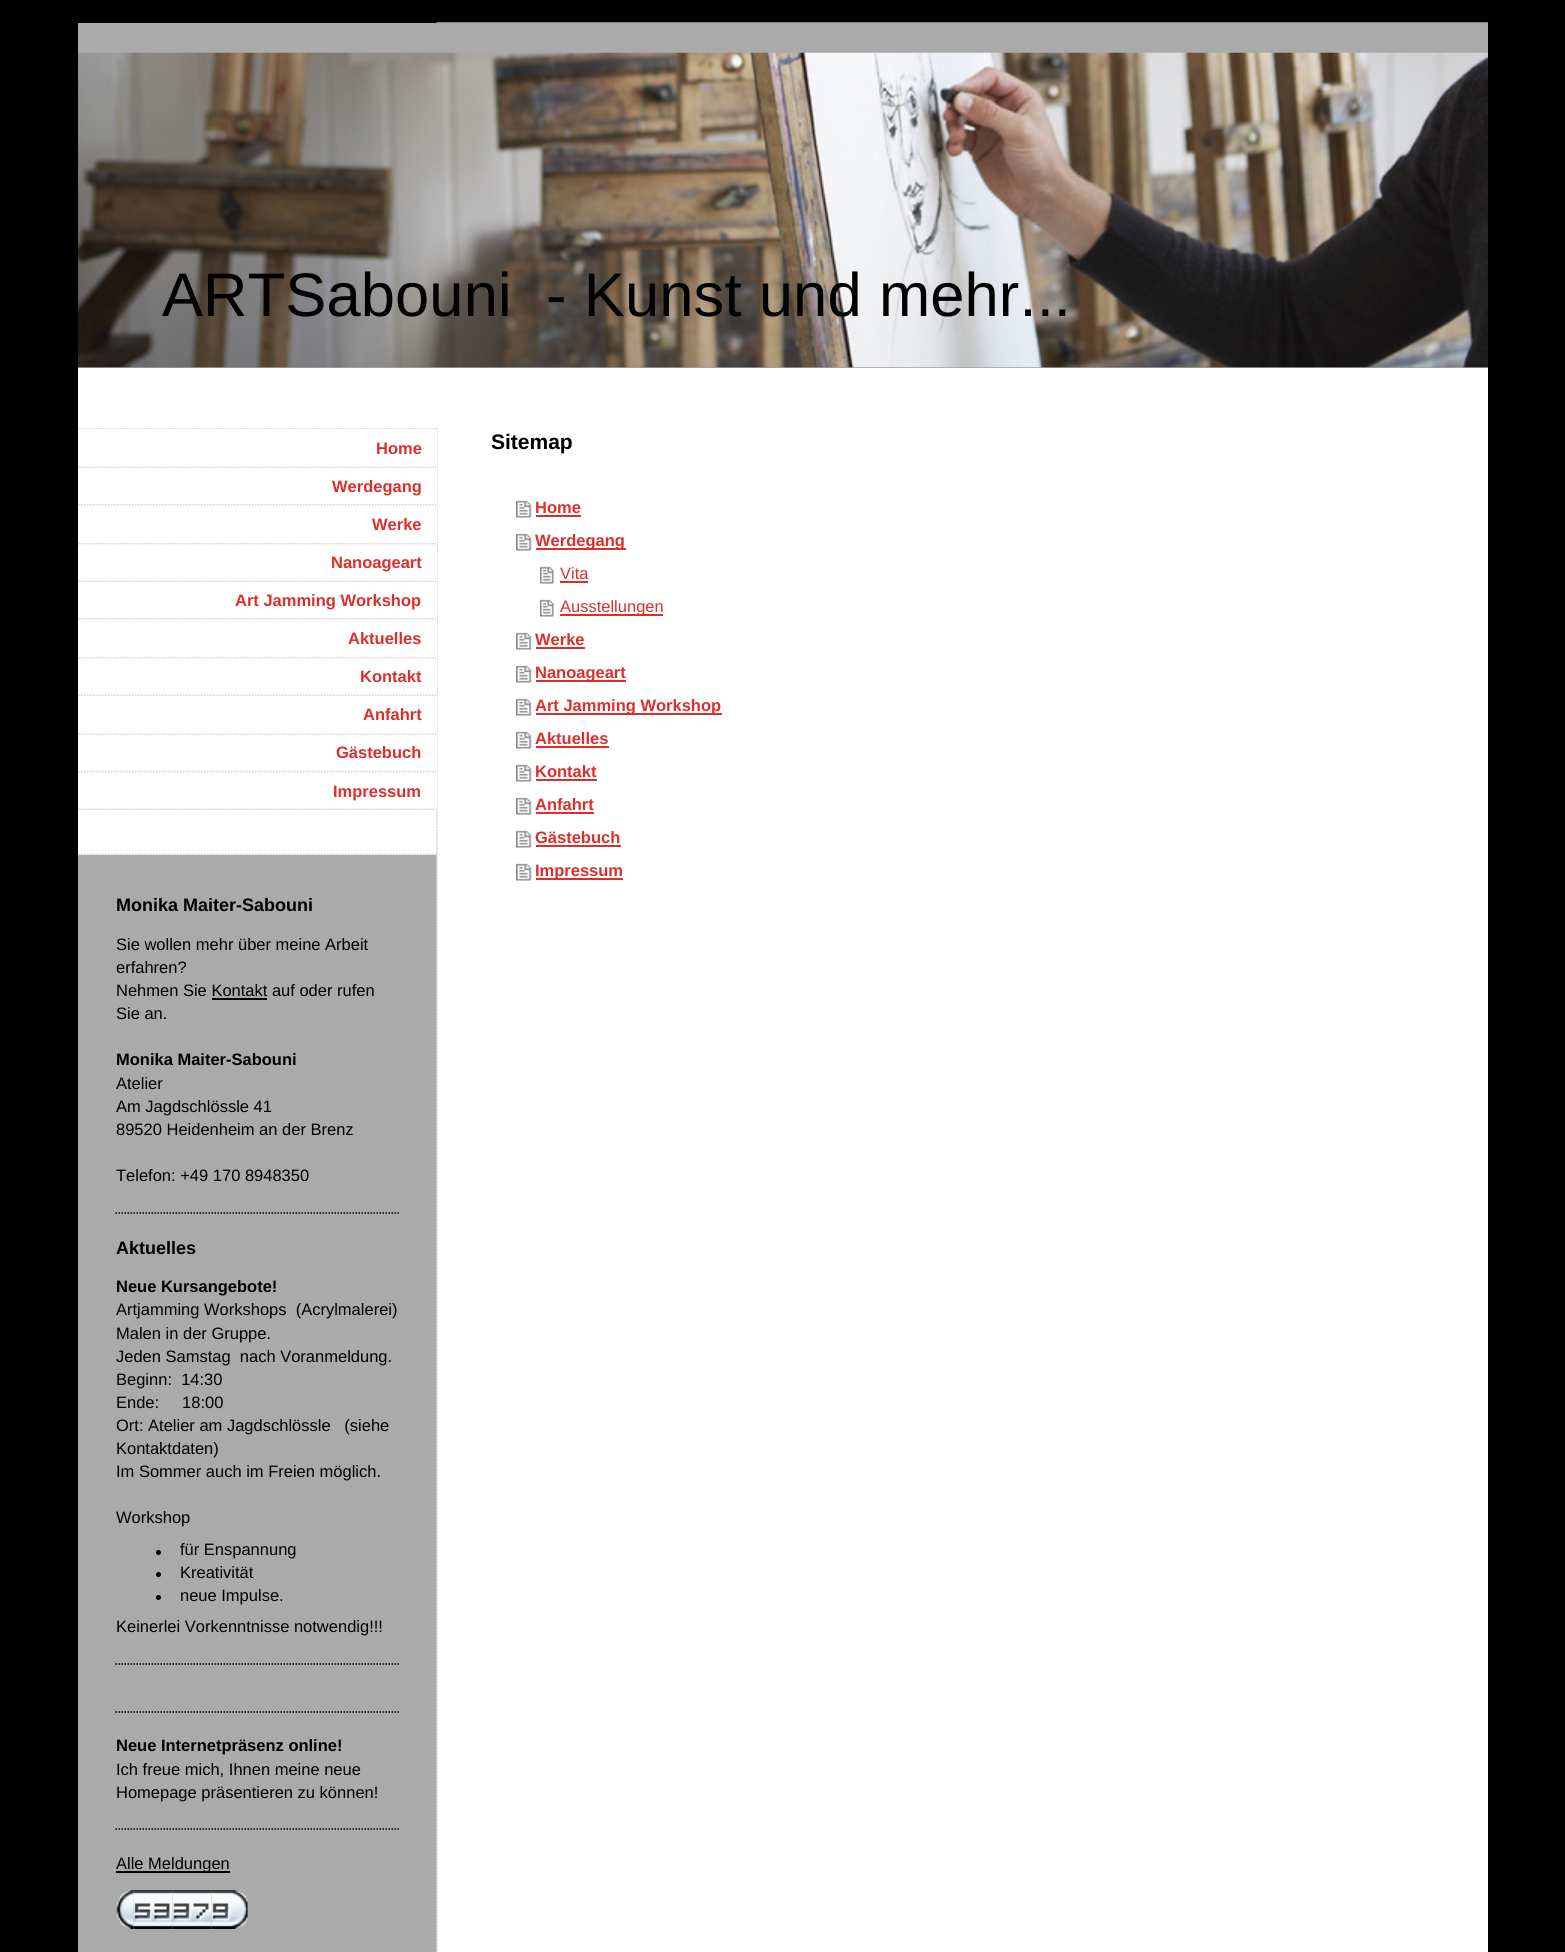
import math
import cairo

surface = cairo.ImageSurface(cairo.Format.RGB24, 1565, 1952)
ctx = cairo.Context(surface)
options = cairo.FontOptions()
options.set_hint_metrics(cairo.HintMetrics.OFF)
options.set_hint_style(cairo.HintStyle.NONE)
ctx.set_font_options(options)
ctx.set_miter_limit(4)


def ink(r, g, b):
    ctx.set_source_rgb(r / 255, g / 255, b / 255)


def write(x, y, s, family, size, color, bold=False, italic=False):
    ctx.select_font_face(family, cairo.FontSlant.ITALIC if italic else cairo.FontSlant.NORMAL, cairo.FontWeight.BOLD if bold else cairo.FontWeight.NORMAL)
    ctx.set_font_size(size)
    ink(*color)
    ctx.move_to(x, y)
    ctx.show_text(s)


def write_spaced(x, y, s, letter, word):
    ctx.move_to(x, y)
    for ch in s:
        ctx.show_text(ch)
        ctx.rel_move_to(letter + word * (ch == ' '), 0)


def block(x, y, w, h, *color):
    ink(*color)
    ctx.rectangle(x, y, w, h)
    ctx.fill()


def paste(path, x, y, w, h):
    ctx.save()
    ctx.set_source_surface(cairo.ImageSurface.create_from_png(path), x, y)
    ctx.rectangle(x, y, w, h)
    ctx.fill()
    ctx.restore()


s1 = dict(family="Liberation Sans", size=16.5, color=(219, 47, 44), bold=True)
s2 = dict(family="Liberation Sans", size=18, color=(0, 0, 0), bold=True)
s3 = dict(family="Liberation Sans", size=16.5, color=(0, 0, 0))
s4 = dict(family="Liberation Sans", size=16.5, color=(0, 0, 0), bold=True)
s5 = dict(family="Liberation Sans", size=21, color=(0, 0, 0), bold=True)
s6 = dict(family="Liberation Sans", size=16.5, color=(219, 47, 44))

ink(0, 0, 0)
ctx.paint()
block(78, 428, 359, 1524, 171, 170, 170)
paste("pic1.png", 436, 22, 1052, 1930)
block(78, 368, 361, 60, 255, 255, 255)
block(78, 23, 1410, 30, 171, 170, 170)
block(78, 367, 1410, 1, 160, 160, 160)
paste("pic2.png", 78, 52, 1410, 316)
ctx.select_font_face("Liberation Sans")
ctx.set_font_size(61.5)
ink(0, 0, 0)
write_spaced(162, 316, "ARTSabouni  - Kunst und mehr...", 0.1, 0)
paste("pic3.png", 78, 810, 359, 45)
paste("pic4.png", 78, 428, 359, 1)
block(78, 429, 359, 381, 255, 255, 255)
paste("pic5.png", 78, 466, 359, 2)
write(376, 454, "Home", **s1)
paste("pic6.png", 78, 504, 359, 2)
write(332, 492, "Werdegang", **s1)
paste("pic6.png", 78, 543, 359, 2)
write(372, 530, "Werke", **s1)
paste("pic5.png", 78, 580, 359, 2)
write(331, 568, "Nanoageart", **s1)
paste("pic6.png", 78, 618, 359, 2)
write(235, 606, "Art Jamming Workshop", **s1)
paste("pic6.png", 78, 657, 359, 2)
write(348, 644, "Aktuelles", **s1)
paste("pic5.png", 78, 694, 359, 2)
write(360, 682, "Kontakt", **s1)
paste("pic5.png", 78, 733, 359, 2)
write(363, 720, "Anfahrt", **s1)
paste("pic6.png", 78, 771, 359, 2)
write(336, 758, "Gästebuch", **s1)
paste("pic5.png", 78, 808, 359, 2)
write(333, 797, "Impressum", **s1)
write(116, 911, "Monika Maiter-Sabouni", **s2)
write(116, 950, "Sie wollen mehr über meine Arbeit", **s3)
write(116, 973, "erfahren?", **s3)
write(116, 996, "Nehmen Sie Kontakt auf oder rufen", **s3)
block(212, 998, 55, 2, 0, 0, 0)
write(116, 1019, "Sie an.", **s3)
write(116, 1065, "Monika Maiter-Sabouni", **s4)
write(116, 1089, "Atelier", **s3)
write(116, 1112, "Am Jagdschlössle 41", **s3)
write(116, 1135, "89520 Heidenheim an der Brenz", **s3)
write(116, 1181, "Telefon: +49 170 8948350", **s3)
ctx.new_path()
ctx.move_to(115.5, 1213)
ctx.line_to(399, 1213)
ctx.set_line_width(1.5)
ctx.set_dash([1.5, 1.5])
ctx.stroke()
write(116, 1254, "Aktuelles", **s2)
write(116, 1292, "Neue Kursangebote!", **s4)
write(116, 1315, "Artjamming Workshops  (Acrylmalerei)", **s3)
write(116, 1339, "Malen in der Gruppe.", **s3)
write(116, 1362, "Jeden Samstag  nach Voranmeldung.", **s3)
write(116, 1385, "Beginn:  14:30", **s3)
write(116, 1408, "Ende:     18:00", **s3)
write(116, 1431, "Ort: Atelier am Jagdschlössle   (siehe", **s3)
write(116, 1454, "Kontaktdaten)", **s3)
write(116, 1477, "Im Sommer auch im Freien möglich.", **s3)
write(116, 1523, "Workshop", **s3)
ctx.new_path()
ctx.arc(158.5, 1552.5, 2.5, 0, 2 * math.pi)
ctx.fill()
write(180, 1555, "für Enspannung", **s3)
ctx.new_path()
ctx.arc(158.5, 1574.5, 2.5, 0, 2 * math.pi)
ctx.fill()
write(180, 1578, "Kreativität", **s3)
ctx.new_path()
ctx.arc(158.5, 1597.5, 2.5, 0, 2 * math.pi)
ctx.fill()
write(180, 1601, "neue Impulse.", **s3)
write(116, 1632, "Keinerlei Vorkenntnisse notwendig!!!", **s3)
ctx.new_path()
ctx.move_to(115.5, 1664)
ctx.line_to(399, 1664)
ctx.stroke()
ctx.new_path()
ctx.move_to(115.5, 1712)
ctx.line_to(399, 1712)
ctx.stroke()
write(116, 1751, "Neue Internetpräsenz online!", **s4)
write(116, 1775, "Ich freue mich, Ihnen meine neue", **s3)
write(116, 1798, "Homepage präsentieren zu können!", **s3)
ctx.new_path()
ctx.move_to(115.5, 1829)
ctx.line_to(399, 1829)
ctx.stroke()
block(116, 1871, 114, 2, 0, 0, 0)
write(116, 1869, "Alle Meldungen", **s3)
paste("pic7.png", 116, 1890, 18, 39)
paste("pic8.png", 133, 1890, 20, 39)
paste("pic9.png", 153, 1890, 20, 39)
paste("pic10.png", 172, 1890, 20, 39)
paste("pic11.png", 192, 1890, 20, 39)
paste("pic12.png", 211, 1890, 20, 39)
paste("pic13.png", 231, 1890, 17, 39)
block(438, 428, 1, 582, 255, 255, 255)
write(491, 449, "Sitemap", **s5)
paste("pic14.png", 516, 500, 16, 18)
write(535, 513, "Home", **s1)
block(536, 515, 45, 2, 219, 47, 44)
paste("pic14.png", 516, 533, 16, 18)
block(536, 548, 90, 2, 219, 47, 44)
write(535, 546, "Werdegang", **s1)
paste("pic15.png", 540, 566, 14, 18)
write(560, 579, "Vita", **s6)
block(560, 581, 28, 2, 219, 47, 44)
paste("pic15.png", 540, 599, 14, 18)
block(560, 614, 103, 2, 219, 47, 44)
write(560, 612, "Ausstellungen", **s6)
paste("pic14.png", 516, 632, 16, 18)
write(535, 645, "Werke", **s1)
block(536, 647, 49, 2, 219, 47, 44)
paste("pic14.png", 516, 665, 16, 18)
block(536, 680, 90, 2, 219, 47, 44)
write(535, 678, "Nanoageart", **s1)
paste("pic14.png", 516, 698, 16, 18)
block(536, 713, 186, 2, 219, 47, 44)
write(535, 711, "Art Jamming Workshop", **s1)
paste("pic14.png", 516, 731, 16, 18)
write(535, 744, "Aktuelles", **s1)
block(536, 746, 73, 2, 219, 47, 44)
paste("pic14.png", 516, 764, 16, 18)
write(535, 777, "Kontakt", **s1)
block(536, 779, 61, 2, 219, 47, 44)
paste("pic14.png", 516, 797, 16, 18)
write(535, 810, "Anfahrt", **s1)
block(536, 812, 58, 2, 219, 47, 44)
paste("pic14.png", 516, 830, 16, 18)
write(535, 843, "Gästebuch", **s1)
block(536, 845, 85, 2, 219, 47, 44)
paste("pic14.png", 516, 863, 16, 18)
block(536, 878, 87, 2, 219, 47, 44)
write(535, 876, "Impressum", **s1)
surface.write_to_png("screenshot.png")
